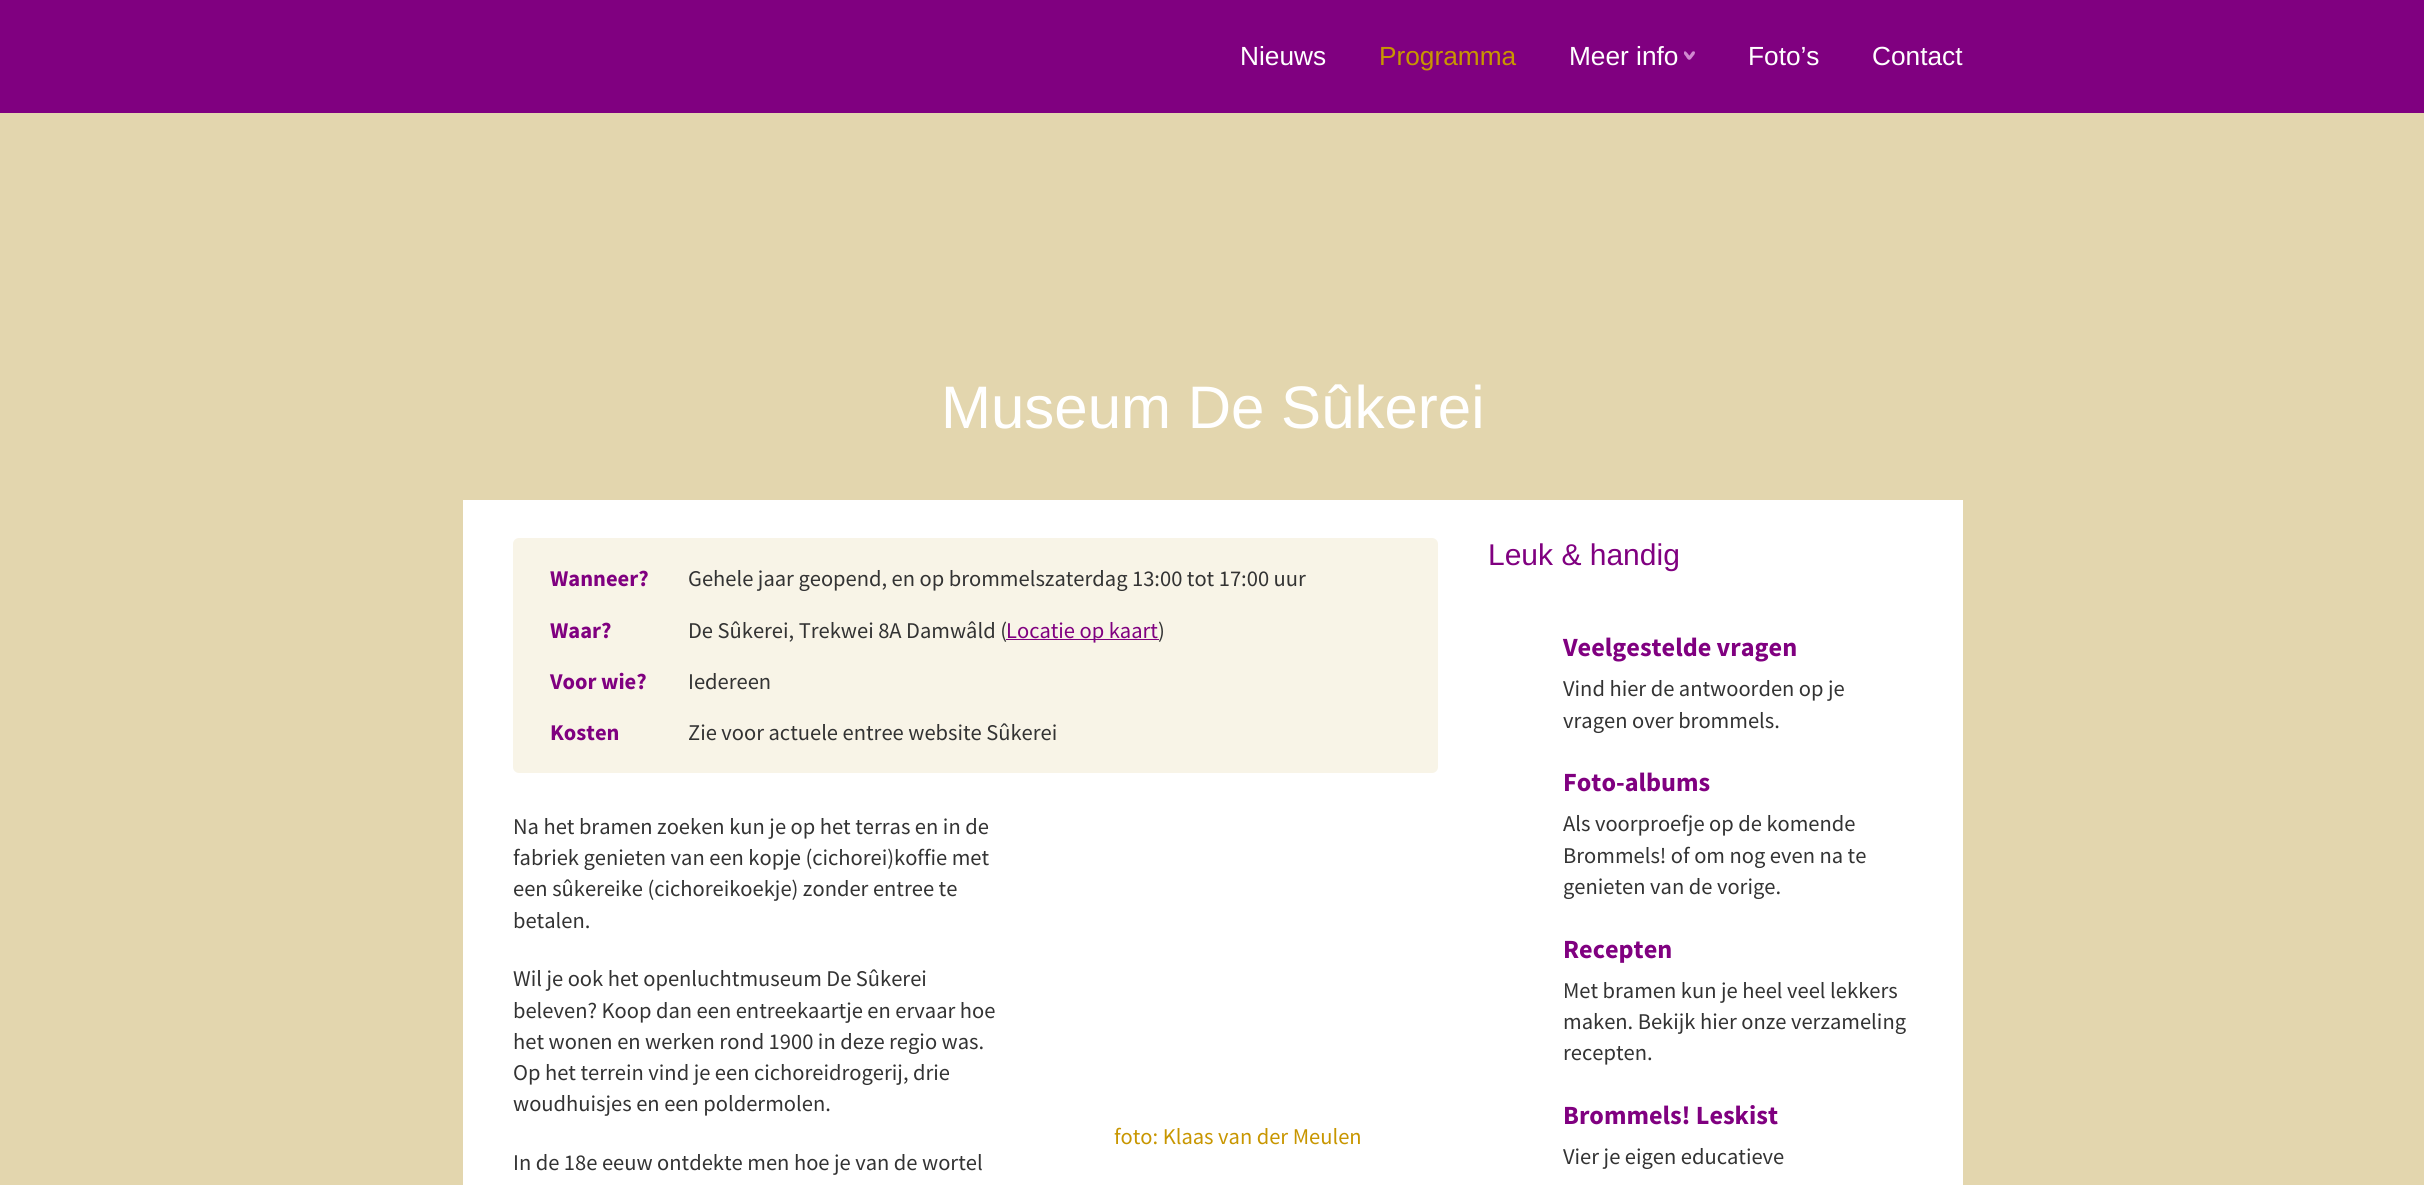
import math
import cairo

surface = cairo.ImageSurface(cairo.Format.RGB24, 2424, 1185)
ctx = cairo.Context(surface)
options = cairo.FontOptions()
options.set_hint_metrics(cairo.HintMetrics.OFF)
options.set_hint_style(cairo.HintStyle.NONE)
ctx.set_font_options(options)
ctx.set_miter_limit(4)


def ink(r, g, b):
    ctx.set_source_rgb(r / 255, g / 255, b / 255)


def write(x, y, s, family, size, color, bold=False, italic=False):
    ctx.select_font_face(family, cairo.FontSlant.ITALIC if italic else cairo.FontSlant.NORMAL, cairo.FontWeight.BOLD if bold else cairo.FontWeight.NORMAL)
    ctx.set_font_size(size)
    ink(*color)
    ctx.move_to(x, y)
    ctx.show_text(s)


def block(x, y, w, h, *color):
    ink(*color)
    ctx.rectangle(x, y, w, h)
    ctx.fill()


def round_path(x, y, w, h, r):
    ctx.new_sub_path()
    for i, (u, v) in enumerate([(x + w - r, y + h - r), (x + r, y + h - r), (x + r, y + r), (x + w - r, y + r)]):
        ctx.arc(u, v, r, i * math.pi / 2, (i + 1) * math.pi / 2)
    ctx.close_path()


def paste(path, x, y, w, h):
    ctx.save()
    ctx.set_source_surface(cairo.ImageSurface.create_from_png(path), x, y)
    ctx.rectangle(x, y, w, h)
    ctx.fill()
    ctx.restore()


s1 = dict(family="Liberation Sans", size=26.25, color=(255, 255, 255))
s2 = dict(family="Liberation Sans", size=26.25, color=(200, 150, 0))
s3 = dict(family="Liberation Sans", size=60, color=(255, 255, 255))
s4 = dict(family="Source Sans Pro", size=22.5, color=(128, 0, 128), bold=True)
s5 = dict(family="Source Sans Pro", size=22.5, color=(51, 51, 51))
s6 = dict(family="Source Sans Pro", size=22.5, color=(128, 0, 128))
s7 = dict(family="Source Sans Pro", size=22.5, color=(200, 150, 0))
s8 = dict(family="Liberation Sans", size=30, color=(128, 0, 128))
s9 = dict(family="Source Sans Pro", size=26.25, color=(128, 0, 128), bold=True)

ink(227, 214, 174)
ctx.paint()
block(0, 0, 2424, 113, 128, 0, 128)
write(1240, 65, "Nieuws", **s1)
write(1379, 65, "Programma", **s2)
write(1569, 65, "Meer info", **s1)
paste("pic1.png", 1684, 51, 11, 9)
write(1748, 65, "Foto’s", **s1)
write(1872, 65, "Contact", **s1)
write(941, 428, "Museum De Sûkerei", **s3)
block(463, 500, 1500, 685, 255, 255, 255)
ink(248, 244, 231)
round_path(513, 538, 925, 235, 6)
ctx.fill()
write(550, 586, "Wanneer?", **s4)
write(688, 586, "Gehele jaar geopend, en op brommelszaterdag 13:00 tot 17:00 uur", **s5)
write(550, 638, "Waar?", **s4)
write(688, 638, "De Sûkerei, Trekwei 8A Damwâld (", **s5)
block(1006, 639, 153, 1, 128, 0, 128)
write(1006, 638, "Locatie op kaart", **s6)
write(1158, 638, ")", **s5)
write(550, 689, "Voor wie?", **s4)
write(688, 689, "Iedereen", **s5)
write(550, 740, "Kosten", **s4)
write(688, 740, "Zie voor actuele entree website Sûkerei", **s5)
write(513, 834, "Na het bramen zoeken kun je op het terras en in de", **s5)
write(513, 865, "fabriek genieten van een kopje (cichorei)koffie met", **s5)
write(513, 896, "een sûkereike (cichoreikoekje) zonder entree te", **s5)
write(513, 928, "betalen.", **s5)
write(513, 986, "Wil je ook het openluchtmuseum De Sûkerei", **s5)
write(513, 1018, "beleven? Koop dan een entreekaartje en ervaar hoe", **s5)
write(513, 1049, "het wonen en werken rond 1900 in deze regio was.", **s5)
write(513, 1080, "Op het terrein vind je een cichoreidrogerij, drie", **s5)
write(513, 1111, "woudhuisjes en een poldermolen.", **s5)
write(1114, 1144, "foto: Klaas van der Meulen", **s7)
write(513, 1170, "In de 18e eeuw ontdekte men hoe je van de wortel", **s5)
write(1488, 565, "Leuk & handig", **s8)
write(1563, 656, "Veelgestelde vragen", **s9)
write(1563, 696, "Vind hier de antwoorden op je", **s5)
write(1563, 728, "vragen over brommels.", **s5)
write(1563, 791, "Foto-albums", **s9)
write(1563, 831, "Als voorproefje op de komende", **s5)
write(1563, 863, "Brommels! of om nog even na te", **s5)
write(1563, 894, "genieten van de vorige.", **s5)
write(1563, 958, "Recepten", **s9)
write(1563, 998, "Met bramen kun je heel veel lekkers", **s5)
write(1563, 1029, "maken. Bekijk hier onze verzameling", **s5)
write(1563, 1060, "recepten.", **s5)
write(1563, 1124, "Brommels! Leskist", **s9)
write(1563, 1164, "Vier je eigen educatieve", **s5)
surface.write_to_png("screenshot.png")
